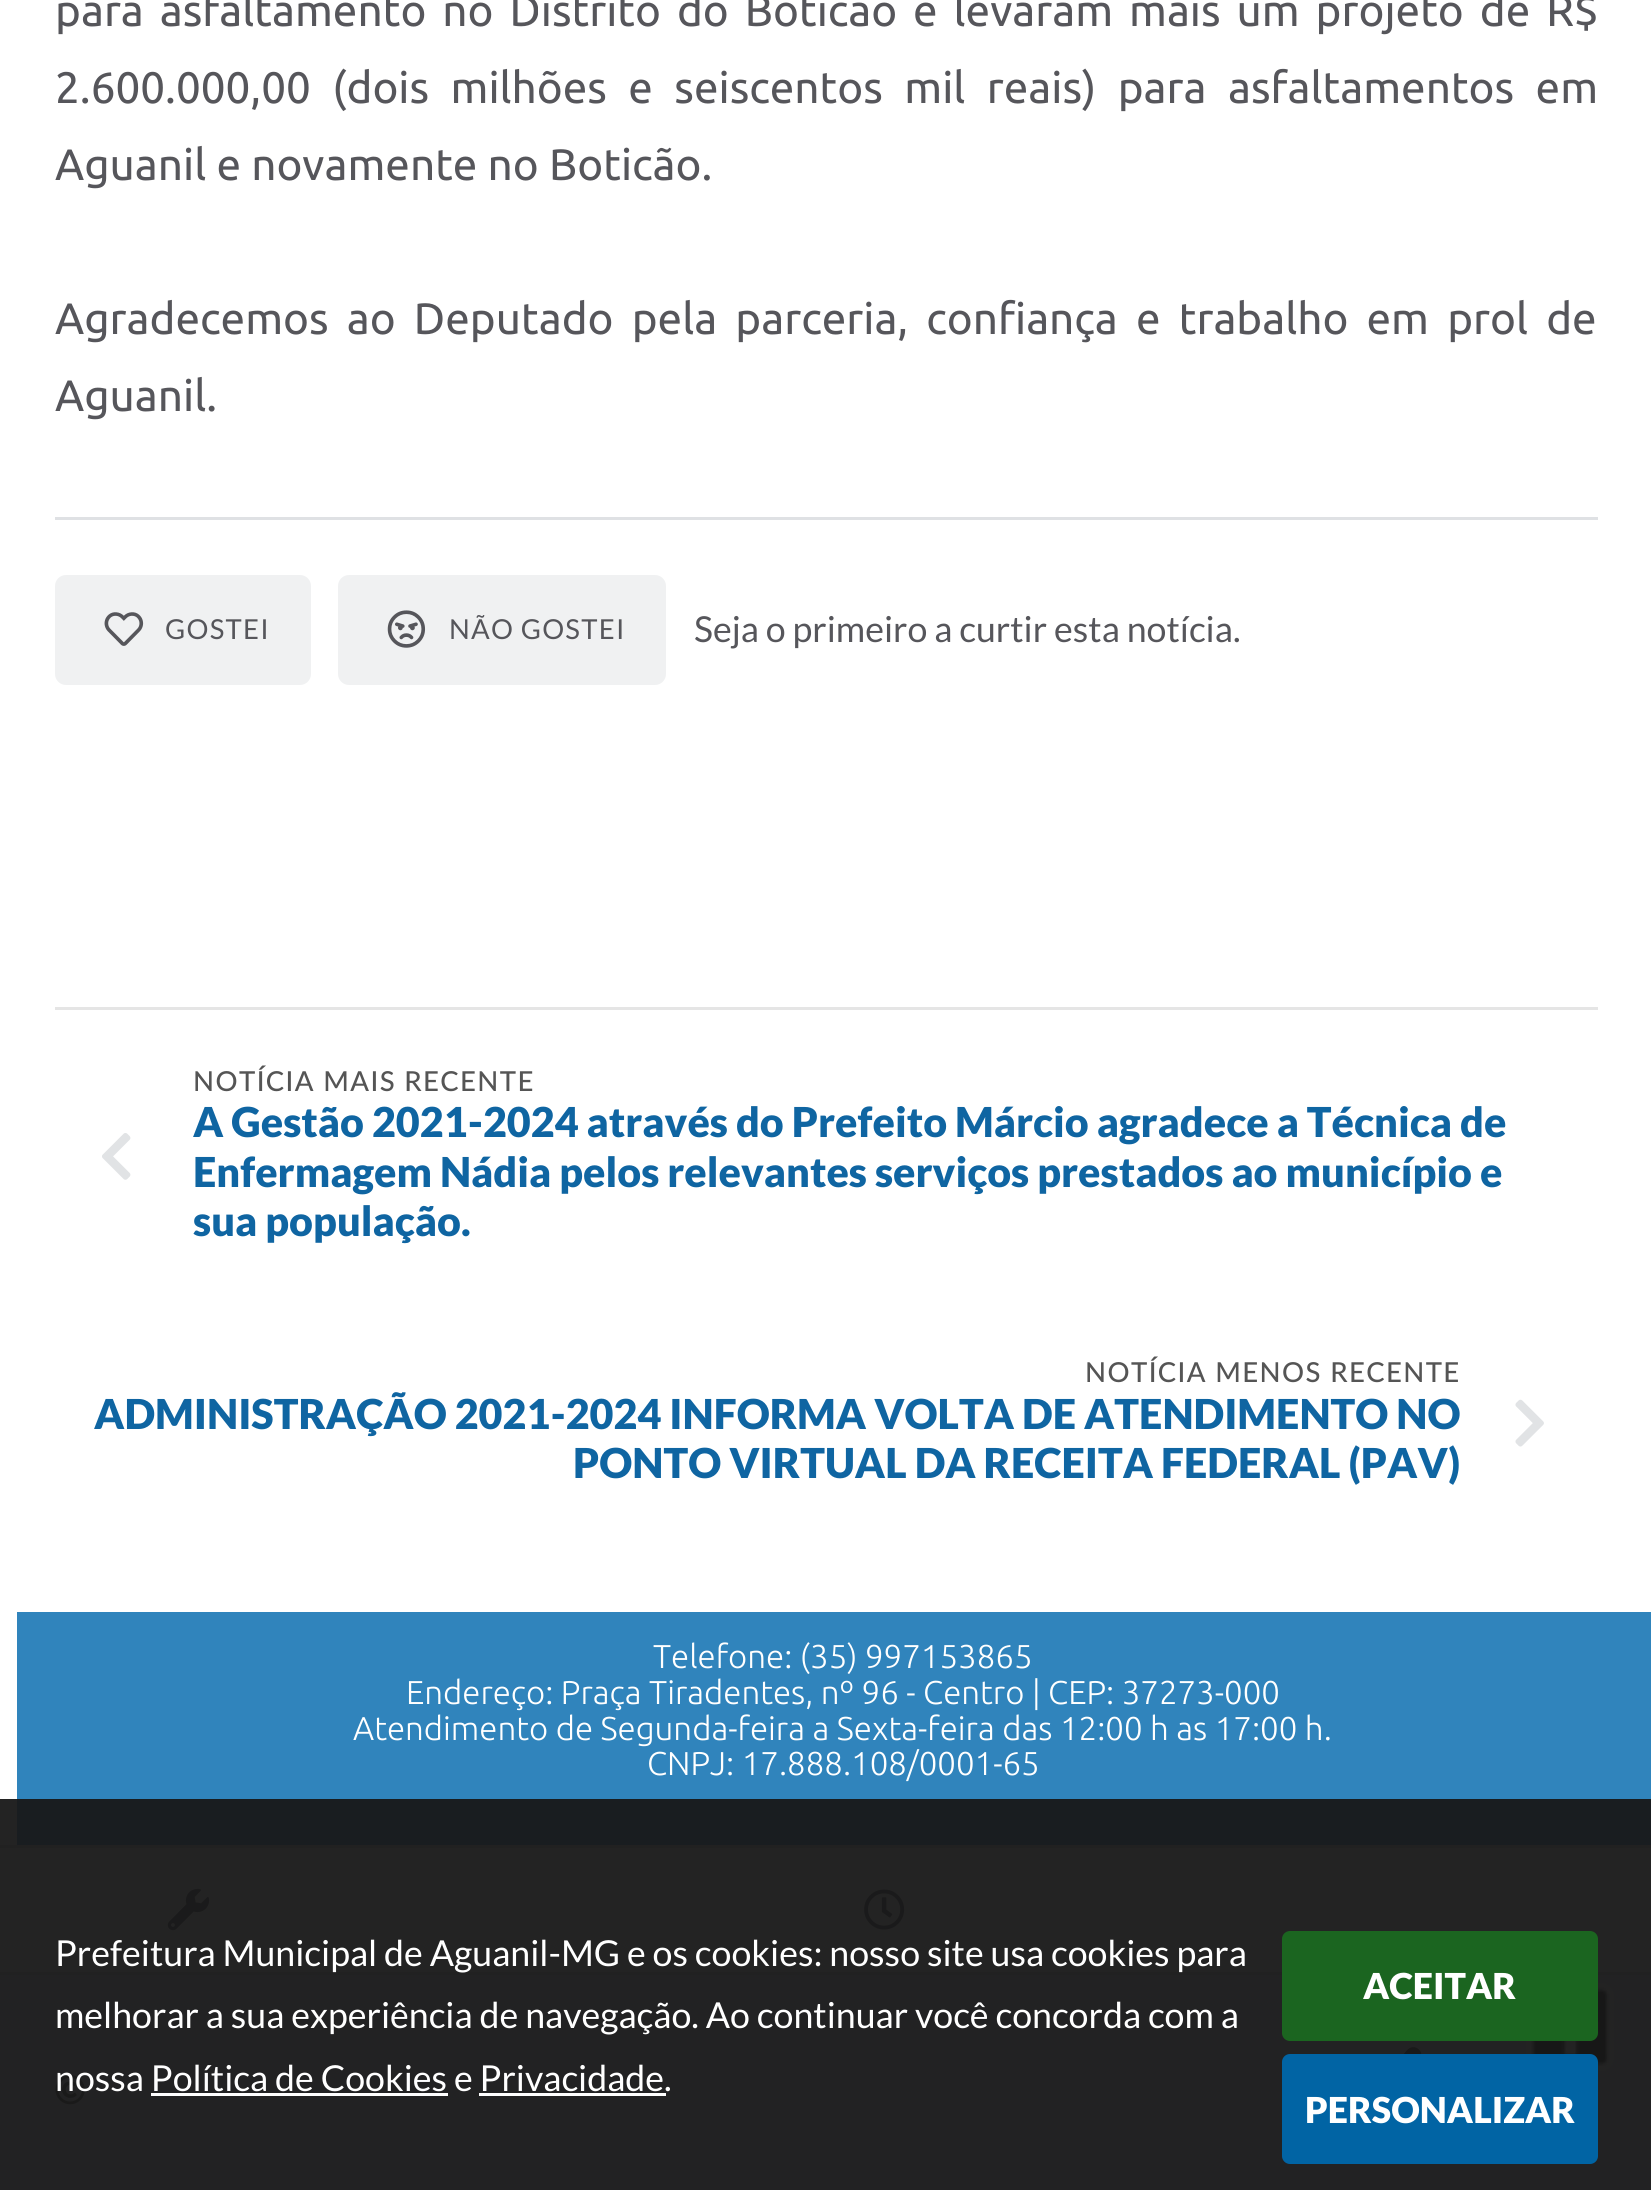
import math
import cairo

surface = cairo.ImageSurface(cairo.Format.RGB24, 1651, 2190)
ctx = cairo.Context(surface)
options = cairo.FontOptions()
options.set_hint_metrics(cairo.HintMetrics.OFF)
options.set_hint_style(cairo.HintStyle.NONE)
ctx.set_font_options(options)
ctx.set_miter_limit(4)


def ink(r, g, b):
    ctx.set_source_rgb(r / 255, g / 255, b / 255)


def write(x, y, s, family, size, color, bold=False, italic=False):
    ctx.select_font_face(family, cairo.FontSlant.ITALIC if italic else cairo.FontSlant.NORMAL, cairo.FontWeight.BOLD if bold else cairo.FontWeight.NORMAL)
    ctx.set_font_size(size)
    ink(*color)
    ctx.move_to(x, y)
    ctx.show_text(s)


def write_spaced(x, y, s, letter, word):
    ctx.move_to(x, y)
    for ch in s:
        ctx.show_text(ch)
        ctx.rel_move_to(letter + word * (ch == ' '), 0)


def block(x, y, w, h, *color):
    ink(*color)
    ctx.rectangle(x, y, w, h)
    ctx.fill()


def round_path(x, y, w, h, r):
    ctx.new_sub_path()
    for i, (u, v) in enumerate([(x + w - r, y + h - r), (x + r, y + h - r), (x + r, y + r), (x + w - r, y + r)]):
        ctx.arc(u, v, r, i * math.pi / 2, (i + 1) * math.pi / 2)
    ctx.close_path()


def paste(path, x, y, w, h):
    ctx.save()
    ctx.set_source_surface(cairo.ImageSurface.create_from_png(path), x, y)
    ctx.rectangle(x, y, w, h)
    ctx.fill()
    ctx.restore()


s1 = dict(family="Ubuntu", size=44, color=(86, 86, 91))
s2 = dict(family="Lato", size=35.75, color=(86, 86, 91))
s3 = dict(family="Lato Black", size=41.25, color=(15, 101, 162))
s4 = dict(family="Ubuntu Light", size=33, color=(255, 255, 255))
s5 = dict(family="Lato", size=35.75, color=(255, 255, 255))
s6 = dict(family="Lato Black", size=35.75, color=(255, 255, 255))

ink(255, 255, 255)
ctx.paint()
ctx.select_font_face("Ubuntu")
ctx.set_font_size(44)
ink(86, 86, 91)
write_spaced(55, 26, "para asfaltamento no Distrito do Boticão e levaram mais um projeto de R$", 0, 5.75)
write_spaced(55, 103, "2.600.000,00 (dois milhões e seiscentos mil reais) para asfaltamentos em", 0, 11.25)
write(55, 180, "Aguanil e novamente no Boticão.", **s1)
write_spaced(55, 334, "Agradecemos ao Deputado pela parceria, confiança e trabalho em prol de", 0, 8)
write(55, 411, "Aguanil.", **s1)
block(55, 517, 1543, 3, 223, 225, 228)
ink(240, 241, 242)
round_path(55, 575, 256, 110, 11)
ctx.fill()
paste("pic1.png", 104, 612, 40, 34)
ctx.select_font_face("Lato")
ctx.set_font_size(27.5)
ink(86, 86, 91)
write_spaced(165, 639, "GOSTEI", 1.25, 0)
ink(240, 241, 242)
round_path(338, 575, 328, 110, 11)
ctx.fill()
paste("pic2.png", 387, 610, 39, 38)
ink(86, 86, 91)
write_spaced(449, 639, "NÃO GOSTEI", 1.25, 0)
write(694, 642, "Seja o primeiro a curtir esta notícia.", **s2)
block(55, 1007, 1543, 3, 229, 229, 229)
ctx.select_font_face("Lato Medium")
ctx.set_font_size(27.5)
ink(85, 85, 85)
write_spaced(193, 1091, "NOTÍCIA MAIS RECENTE", 1.4, 0)
paste("pic3.png", 102, 1133, 29, 47)
write(193, 1137, "A Gestão 2021-2024 através do Prefeito Márcio agradece a Técnica de", **s3)
write(193, 1187, "Enfermagem Nádia pelos relevantes serviços prestados ao município e", **s3)
write(193, 1236, "sua população.", **s3)
ctx.select_font_face("Lato Medium")
ctx.set_font_size(27.5)
ink(85, 85, 85)
write_spaced(1085, 1382, "NOTÍCIA MENOS RECENTE", 1.4, 0)
write(94, 1429, "ADMINISTRAÇÃO 2021-2024 INFORMA VOLTA DE ATENDIMENTO NO", **s3)
write(573, 1478, "PONTO VIRTUAL DA RECEITA FEDERAL (PAV)", **s3)
paste("pic4.png", 1515, 1399, 29, 48)
block(17, 1612, 1634, 233, 48, 132, 188)
write(653, 1668, "Telefone: (35) 997153865", **s4)
write(406, 1704, "Endereço: Praça Tiradentes, nº 96 - Centro | CEP: 37273-000", **s4)
write(353, 1740, "Atendimento de Segunda-feira a Sexta-feira das 12:00 h as 17:00 h.", **s4)
write(647, 1775, "CNPJ: 17.888.108/0001-65", **s4)
block(0, 1845, 1651, 3, 217, 217, 217)
block(0, 1972, 1651, 3, 217, 217, 217)
paste("pic5.png", 167, 1888, 43, 43)
paste("pic6.png", 864, 1889, 41, 41)
block(0, 1975, 1651, 215, 241, 243, 246)
paste("pic7.png", 1404, 2047, 18, 7)
paste("pic8.png", 55, 2075, 30, 30)
paste("pic9.png", 1526, 1983, 88, 88)
ctx.set_source_rgba(0.098, 0.098, 0.098, 0.95)
ctx.rectangle(0, 1799, 1651, 391)
ctx.fill()
write(55, 1966, "Prefeitura Municipal de Aguanil-MG e os cookies: nosso site usa cookies para", **s5)
write(55, 2028, "melhorar a sua experiência de navegação. Ao continuar você concorda com a", **s5)
write(55, 2091, "nossa Política de Cookies e Privacidade.", **s5)
block(151, 2093, 297, 3, 255, 255, 255)
block(479, 2093, 187, 3, 255, 255, 255)
ink(27, 101, 32)
round_path(1282, 1931, 316, 110, 8)
ctx.fill()
write(1363, 1999, "ACEITAR", **s6)
ink(1, 100, 164)
round_path(1282, 2054, 316, 110, 8)
ctx.fill()
write(1305, 2123, "PERSONALIZAR", **s6)
surface.write_to_png("screenshot.png")
